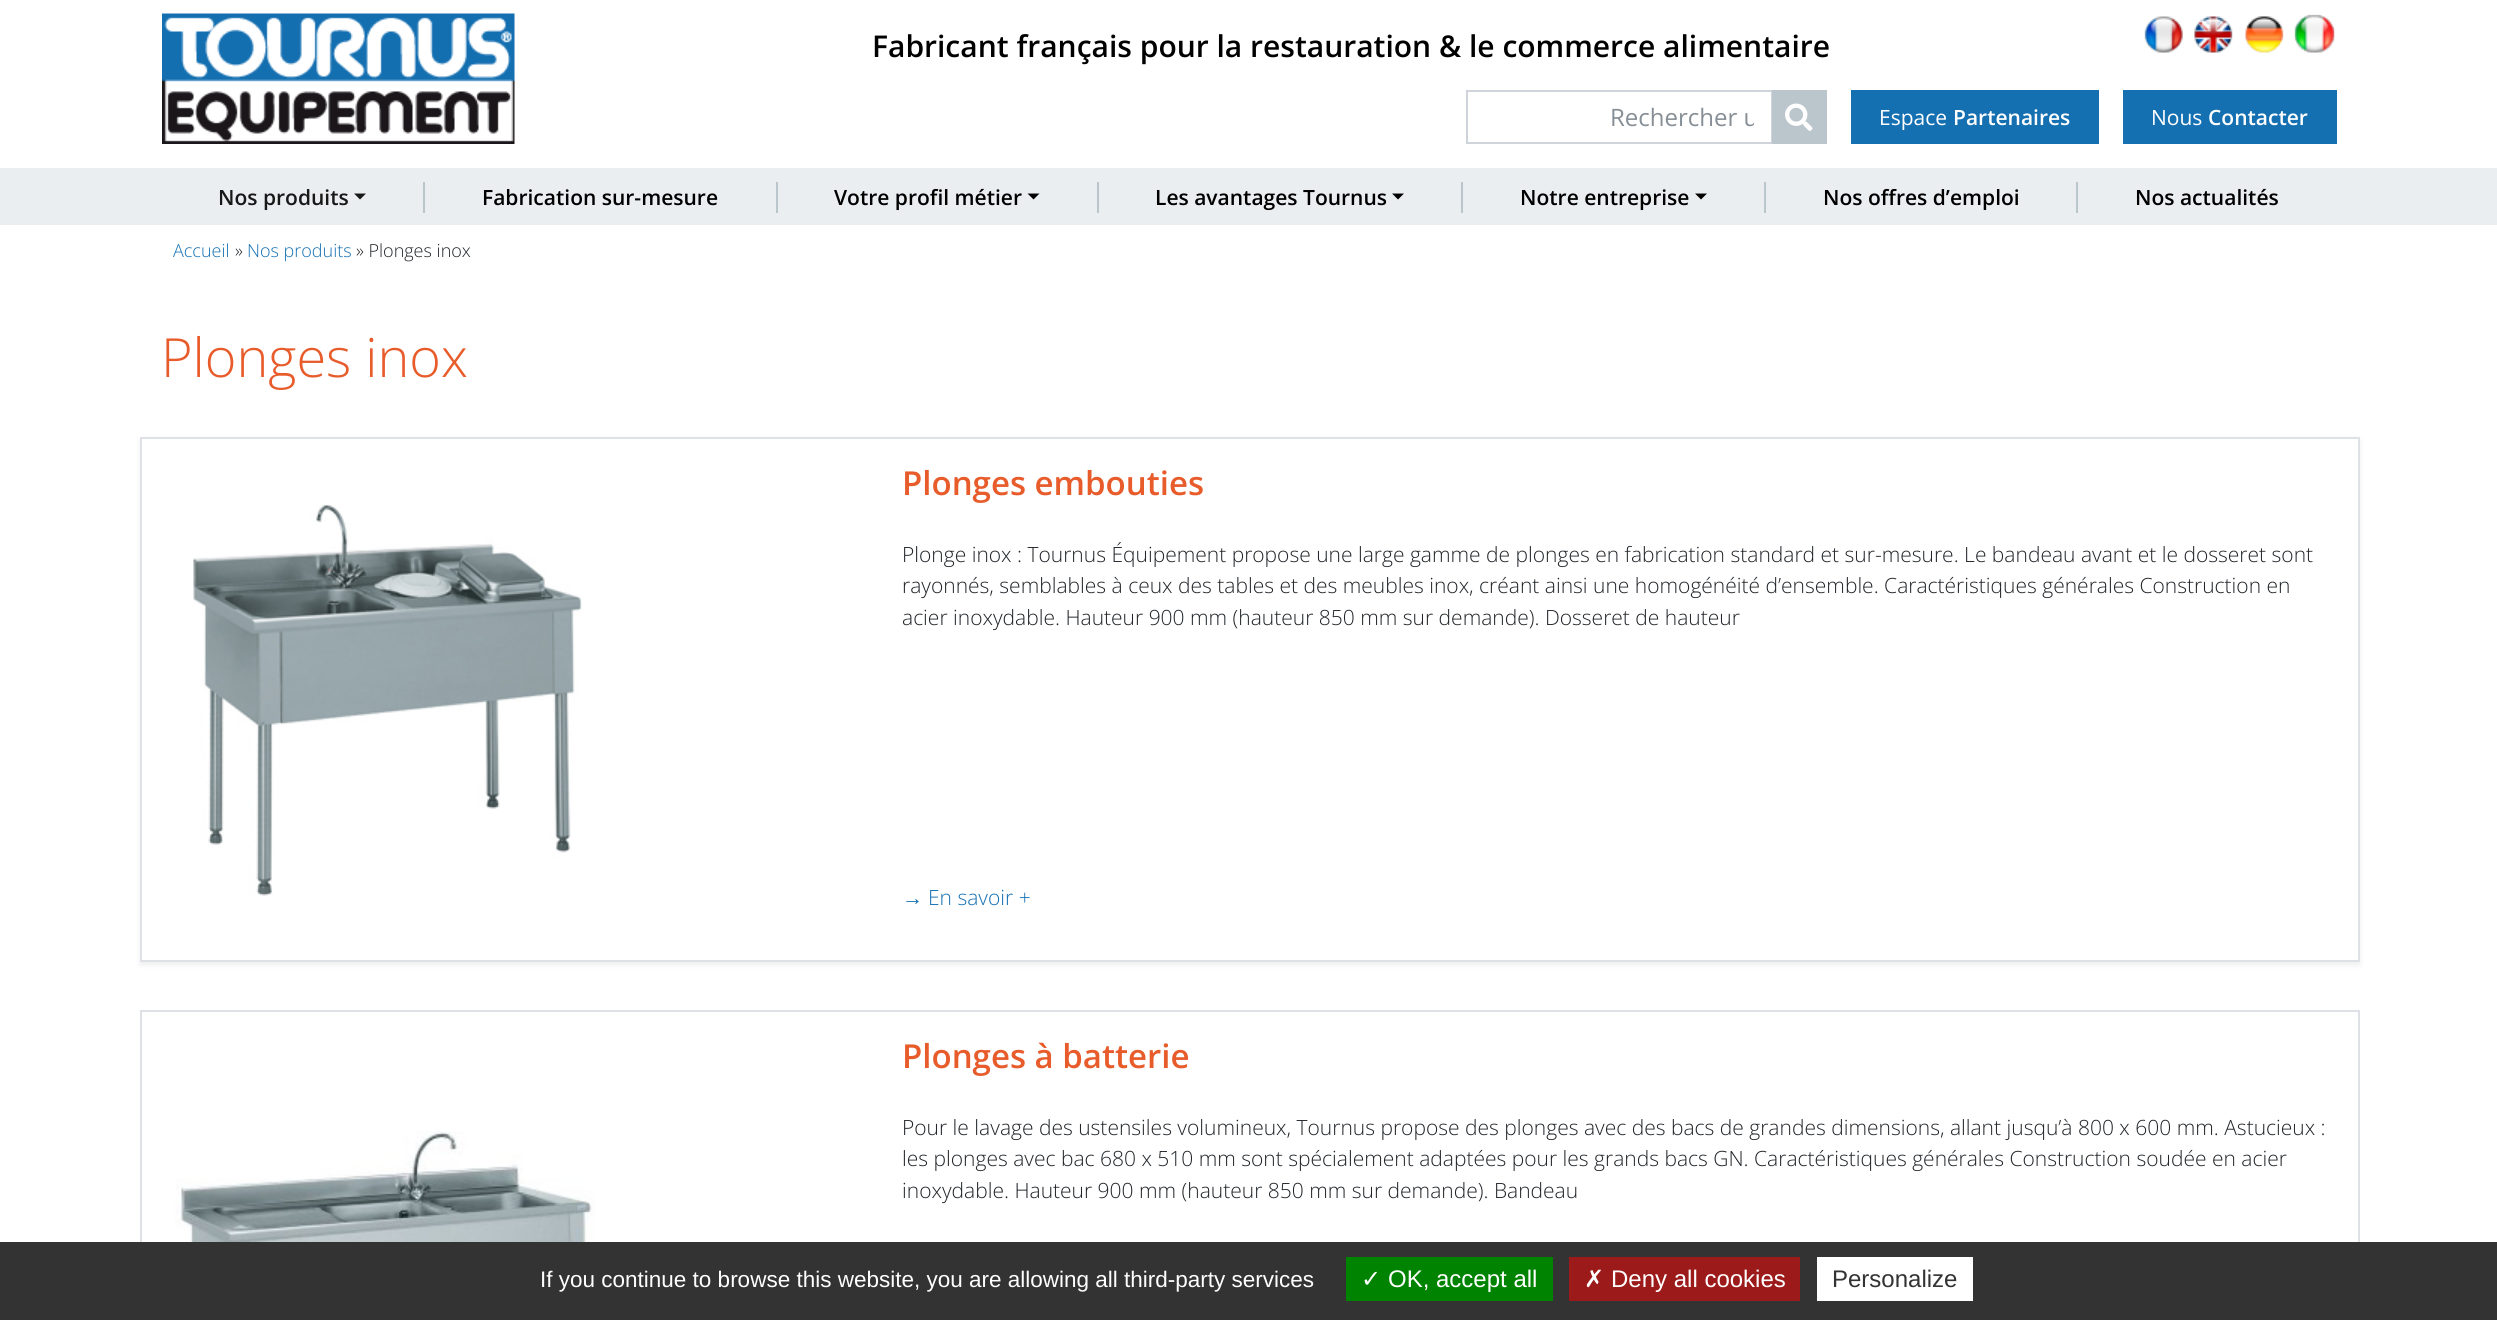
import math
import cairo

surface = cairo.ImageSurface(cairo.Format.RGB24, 2497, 1320)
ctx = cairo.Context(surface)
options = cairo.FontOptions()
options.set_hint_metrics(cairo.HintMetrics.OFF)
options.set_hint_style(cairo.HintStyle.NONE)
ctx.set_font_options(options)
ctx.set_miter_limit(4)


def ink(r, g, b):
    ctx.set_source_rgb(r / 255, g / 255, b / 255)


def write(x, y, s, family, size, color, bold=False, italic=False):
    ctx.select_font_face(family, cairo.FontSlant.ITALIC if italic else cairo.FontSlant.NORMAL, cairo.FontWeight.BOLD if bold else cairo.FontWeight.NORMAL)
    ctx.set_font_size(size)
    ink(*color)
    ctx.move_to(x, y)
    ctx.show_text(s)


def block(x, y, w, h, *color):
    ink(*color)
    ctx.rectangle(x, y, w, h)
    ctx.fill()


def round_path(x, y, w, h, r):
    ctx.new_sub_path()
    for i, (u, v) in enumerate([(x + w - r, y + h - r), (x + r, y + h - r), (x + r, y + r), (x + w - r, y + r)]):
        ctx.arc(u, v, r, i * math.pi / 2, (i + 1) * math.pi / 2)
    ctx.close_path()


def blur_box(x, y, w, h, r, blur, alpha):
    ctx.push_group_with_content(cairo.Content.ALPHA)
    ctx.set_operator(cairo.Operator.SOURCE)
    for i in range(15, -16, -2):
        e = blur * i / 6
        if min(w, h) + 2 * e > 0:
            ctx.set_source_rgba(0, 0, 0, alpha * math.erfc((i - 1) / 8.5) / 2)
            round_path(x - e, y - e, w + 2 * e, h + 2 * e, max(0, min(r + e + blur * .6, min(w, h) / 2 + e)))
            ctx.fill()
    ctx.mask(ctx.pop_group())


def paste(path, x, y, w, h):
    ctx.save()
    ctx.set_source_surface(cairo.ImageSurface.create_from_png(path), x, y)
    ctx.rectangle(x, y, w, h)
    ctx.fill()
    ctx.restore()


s1 = dict(family="Open Sans SemiBold", size=30, color=(0, 0, 0))
s2 = dict(family="Open Sans", size=24, color=(134, 142, 150))
s3 = dict(family="Open Sans", size=21, color=(255, 255, 255))
s4 = dict(family="Open Sans SemiBold", size=21, color=(255, 255, 255))
s5 = dict(family="Open Sans SemiBold", size=21, color=(23, 24, 24))
s6 = dict(family="Open Sans SemiBold", size=21, color=(0, 0, 0))
s7 = dict(family="Open Sans Light", size=18, color=(21, 112, 178))
s8 = dict(family="Open Sans Light", size=18, color=(33, 37, 41))
s9 = dict(family="Open Sans Light", size=54, color=(232, 91, 42))
s10 = dict(family="Open Sans SemiBold", size=33, color=(232, 91, 42))
s11 = dict(family="Open Sans Light", size=21, color=(33, 37, 41))
s12 = dict(family="Liberation Sans", size=21, color=(21, 112, 178))
s13 = dict(family="Open Sans Light", size=21, color=(21, 112, 178))
s14 = dict(family="Liberation Sans", size=22.5, color=(255, 255, 255))
s15 = dict(family="DejaVu Sans", size=24, color=(255, 255, 255))
s16 = dict(family="Liberation Sans", size=24, color=(255, 255, 255))
s17 = dict(family="Liberation Sans", size=24, color=(51, 51, 51))

ink(255, 255, 255)
ctx.paint()
paste("pic1.png", 162, 13, 353, 131)
write(872, 57, "Fabricant français pour la restauration & le commerce alimentaire", **s1)
paste("pic2.png", 2144, 16, 39, 37)
paste("pic3.png", 2194, 16, 39, 37)
paste("pic4.png", 2245, 16, 39, 37)
paste("pic5.png", 2294, 14, 41, 39)
ctx.rectangle(1467, 91, 305, 52)
ink(206, 212, 218)
ctx.stroke()
ctx.save()
ctx.rectangle(1485, 101, 269, 33)
ctx.clip()
write(1610, 126, "Rechercher u", **s2)
ctx.restore()
block(1772, 90, 55, 54, 187, 197, 204)
paste("pic6.png", 1785, 103, 28, 28)
block(1851, 90, 248, 54, 21, 112, 178)
write(1879, 125, "Espace", **s3)
write(1953, 125, "Partenaires", **s4)
block(2123, 90, 214, 54, 21, 112, 178)
write(2151, 125, "Nous", **s3)
write(2208, 125, "Contacter", **s4)
block(0, 168, 2497, 57, 234, 238, 240)
write(218, 205, "Nos produits", **s5)
ctx.new_path()
ctx.move_to(354, 193.5)
ctx.line_to(366, 193.5)
ctx.line_to(360, 199.5)
ctx.close_path()
ctx.fill()
block(423, 182, 2, 31, 187, 197, 204)
write(482, 205, "Fabrication sur-mesure", **s6)
block(776, 182, 2, 31, 187, 197, 204)
write(834, 205, "Votre profil métier", **s6)
ctx.new_path()
ctx.move_to(1027.5, 193.5)
ctx.line_to(1039.5, 193.5)
ctx.line_to(1033.5, 199.5)
ctx.close_path()
ctx.fill()
block(1097, 182, 2, 31, 187, 197, 204)
write(1155, 205, "Les avantages Tournus", **s6)
ctx.new_path()
ctx.move_to(1392, 193.5)
ctx.line_to(1404, 193.5)
ctx.line_to(1398, 199.5)
ctx.close_path()
ctx.fill()
block(1461, 182, 2, 31, 187, 197, 204)
write(1520, 205, "Notre entreprise", **s6)
ctx.new_path()
ctx.move_to(1695, 193.5)
ctx.line_to(1707, 193.5)
ctx.line_to(1701, 199.5)
ctx.close_path()
ctx.fill()
block(1764, 182, 2, 31, 187, 197, 204)
write(1823, 205, "Nos offres d’emploi", **s6)
block(2076, 182, 2, 31, 187, 197, 204)
write(2135, 205, "Nos actualités", **s6)
write(173, 257, "Accueil", **s7)
write(235, 257, "»", **s8)
write(247, 257, "Nos produits", **s7)
write(356, 257, "» Plonges inox", **s8)
write(161, 377, "Plonges inox", **s9)
ctx.save()
ctx.set_fill_rule(cairo.FillRule.EVEN_ODD)
ctx.new_path()
ctx.move_to(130, 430)
ctx.line_to(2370, 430)
ctx.line_to(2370, 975)
ctx.line_to(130, 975)
ctx.close_path()
ctx.move_to(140, 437)
ctx.line_to(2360, 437)
ctx.line_to(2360, 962)
ctx.line_to(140, 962)
ctx.close_path()
ctx.clip()
ink(0, 0, 0)
blur_box(140, 440, 2220, 525, 0, 3, 0.07)
ctx.restore()
ctx.rectangle(141, 438, 2218, 523)
ink(222, 226, 230)
ctx.stroke()
paste("pic7.png", 193, 504, 389, 392)
write(902, 495, "Plonges embouties", **s10)
write(902, 562, "Plonge inox : Tournus Équipement propose une large gamme de plonges en fabrication standard et sur-mesure. Le bandeau avant et le dosseret sont", **s11)
write(902, 593, "rayonnés, semblables à ceux des tables et des meubles inox, créant ainsi une homogénéité d’ensemble. Caractéristiques générales Construction en", **s11)
write(902, 625, "acier inoxydable. Hauteur 900 mm (hauteur 850 mm sur demande). Dosseret de hauteur", **s11)
write(902, 905, "→", **s12)
write(928, 905, "En savoir +", **s13)
ctx.rectangle(141, 1011, 2218, 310)
ink(222, 226, 230)
ctx.stroke()
paste("pic8.png", 175, 1131, 420, 111)
write(902, 1068, "Plonges à batterie", **s10)
write(902, 1135, "Pour le lavage des ustensiles volumineux, Tournus propose des plonges avec des bacs de grandes dimensions, allant jusqu’à 800 x 600 mm. Astucieux :", **s11)
write(902, 1166, "les plonges avec bac 680 x 510 mm sont spécialement adaptées pour les grands bacs GN. Caractéristiques générales Construction soudée en acier", **s11)
write(902, 1198, "inoxydable. Hauteur 900 mm (hauteur 850 mm sur demande). Bandeau", **s11)
block(0, 1242, 2497, 78, 51, 51, 51)
write(540, 1287, "If you continue to browse this website, you are allowing all third-party services", **s14)
block(1346, 1257, 207, 44, 0, 131, 0)
write(1361, 1287, "✓", **s15)
write(1388, 1287, "OK, accept all", **s16)
block(1569, 1257, 231, 44, 156, 26, 26)
write(1584, 1287, "✗", **s15)
write(1611, 1287, "Deny all cookies", **s16)
block(1817, 1257, 156, 44, 255, 255, 255)
write(1832, 1287, "Personalize", **s17)
surface.write_to_png("screenshot.png")
